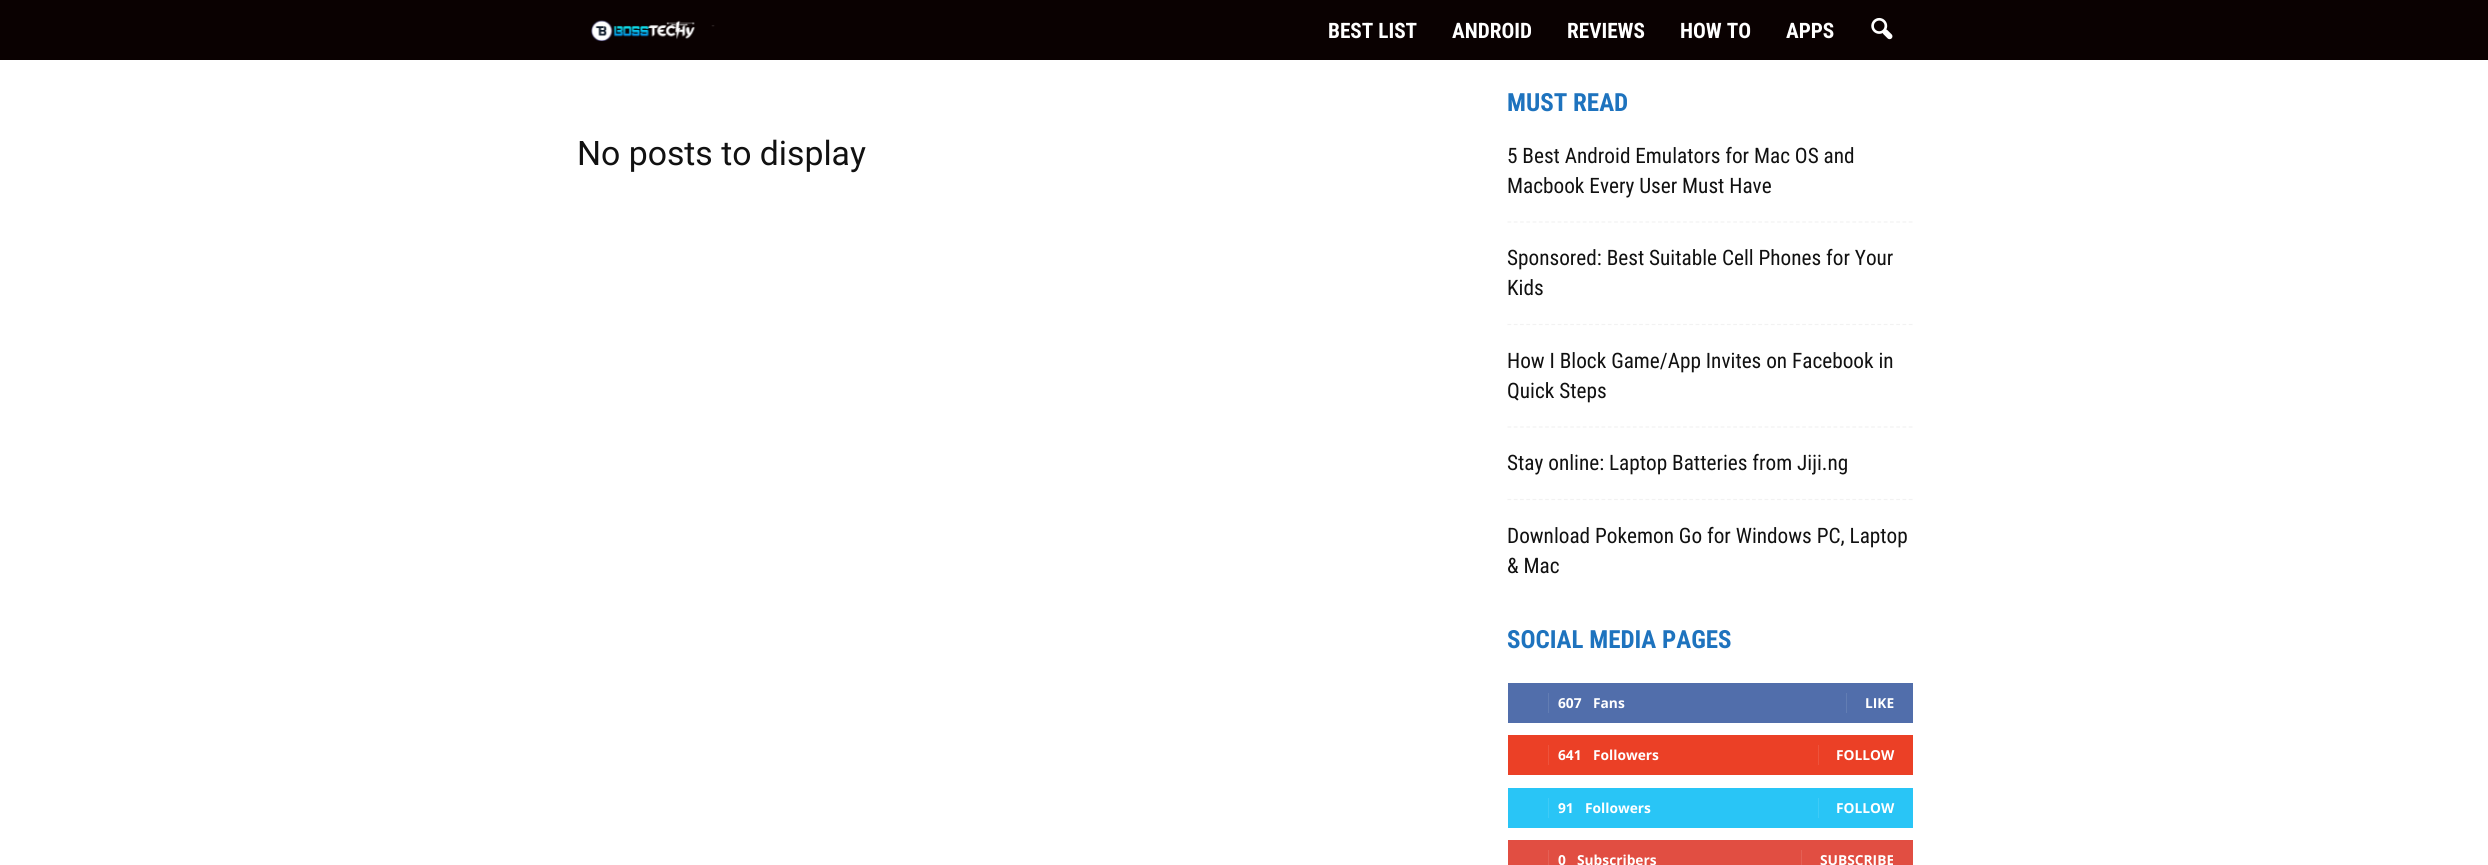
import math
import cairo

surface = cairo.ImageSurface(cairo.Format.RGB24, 2488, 865)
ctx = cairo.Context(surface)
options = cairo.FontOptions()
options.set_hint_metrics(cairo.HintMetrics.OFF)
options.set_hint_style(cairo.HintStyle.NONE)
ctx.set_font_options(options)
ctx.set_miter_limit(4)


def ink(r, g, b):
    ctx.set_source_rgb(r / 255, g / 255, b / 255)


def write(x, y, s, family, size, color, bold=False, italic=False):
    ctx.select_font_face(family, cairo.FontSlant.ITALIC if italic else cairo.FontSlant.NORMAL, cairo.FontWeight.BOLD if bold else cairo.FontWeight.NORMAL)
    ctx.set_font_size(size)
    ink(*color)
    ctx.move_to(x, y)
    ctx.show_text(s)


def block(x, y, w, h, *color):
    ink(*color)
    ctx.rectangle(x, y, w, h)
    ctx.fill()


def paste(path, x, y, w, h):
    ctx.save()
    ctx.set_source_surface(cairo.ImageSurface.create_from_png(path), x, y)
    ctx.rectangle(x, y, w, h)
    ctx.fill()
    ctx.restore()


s1 = dict(family="Roboto Condensed", size=21.25, color=(255, 255, 255), bold=True)
s2 = dict(family="Roboto", size=33.75, color=(17, 17, 17))
s3 = dict(family="Roboto Condensed", size=25, color=(30, 115, 190), bold=True)
s4 = dict(family="Roboto Condensed", size=21.25, color=(17, 17, 17))
s5 = dict(family="Open Sans", size=13.75, color=(255, 255, 255), bold=True)

ink(255, 255, 255)
ctx.paint()
block(0, 0, 2488, 60, 10, 1, 1)
paste("pic1.png", 591, 20, 124, 22)
write(1328, 38, "BEST LIST", **s1)
write(1452, 38, "ANDROID", **s1)
write(1567, 38, "REVIEWS", **s1)
write(1680, 38, "HOW TO", **s1)
write(1786, 38, "APPS", **s1)
paste("pic2.png", 1871, 17, 22, 23)
write(577, 165, "No posts to display", **s2)
write(1507, 111, "MUST READ", **s3)
ctx.new_path()
ctx.move_to(1507.5, 222)
ctx.line_to(1912.5, 222)
ink(242, 242, 242)
ctx.set_line_width(1.2)
ctx.set_dash([3.75, 2.52])
ctx.stroke()
write(1507, 163, "5 Best Android Emulators for Mac OS and", **s4)
write(1507, 193, "Macbook Every User Must Have", **s4)
ctx.new_path()
ctx.move_to(1507.5, 324.5)
ctx.line_to(1912.5, 324.5)
ink(242, 242, 242)
ctx.stroke()
write(1507, 265, "Sponsored: Best Suitable Cell Phones for Your", **s4)
write(1507, 295, "Kids", **s4)
ctx.new_path()
ctx.move_to(1507.5, 427)
ctx.line_to(1912.5, 427)
ink(242, 242, 242)
ctx.stroke()
write(1507, 368, "How I Block Game/App Invites on Facebook in", **s4)
write(1507, 398, "Quick Steps", **s4)
ctx.new_path()
ctx.move_to(1507.5, 499.5)
ctx.line_to(1912.5, 499.5)
ink(242, 242, 242)
ctx.stroke()
write(1507, 470, "Stay online: Laptop Batteries from Jiji.ng", **s4)
write(1507, 543, "Download Pokemon Go for Windows PC, Laptop", **s4)
write(1507, 573, "& Mac", **s4)
write(1507, 648, "SOCIAL MEDIA PAGES", **s3)
block(1508, 683, 405, 40, 81, 110, 171)
block(1548, 693, 1, 20, 98, 125, 179)
write(1558, 708, "607", **s5)
write(1593, 708, "Fans", **s5)
block(1846, 693, 1, 20, 98, 125, 179)
write(1865, 708, "LIKE", **s5)
block(1508, 735, 405, 40, 235, 64, 38)
block(1548, 745, 1, 20, 237, 83, 60)
write(1558, 760, "641", **s5)
write(1593, 760, "Followers", **s5)
block(1818, 745, 1, 20, 237, 83, 60)
write(1836, 760, "FOLLOW", **s5)
block(1508, 788, 405, 40, 41, 197, 246)
block(1548, 798, 1, 20, 62, 203, 247)
write(1558, 813, "91", **s5)
write(1585, 813, "Followers", **s5)
block(1818, 798, 1, 20, 62, 203, 247)
write(1836, 813, "FOLLOW", **s5)
block(1508, 840, 405, 25, 225, 78, 66)
block(1548, 850, 1, 15, 228, 96, 85)
write(1558, 865, "0", **s5)
write(1577, 865, "Subscribers", **s5)
block(1801, 850, 1, 15, 228, 96, 85)
write(1820, 865, "SUBSCRIBE", **s5)
surface.write_to_png("screenshot.png")
